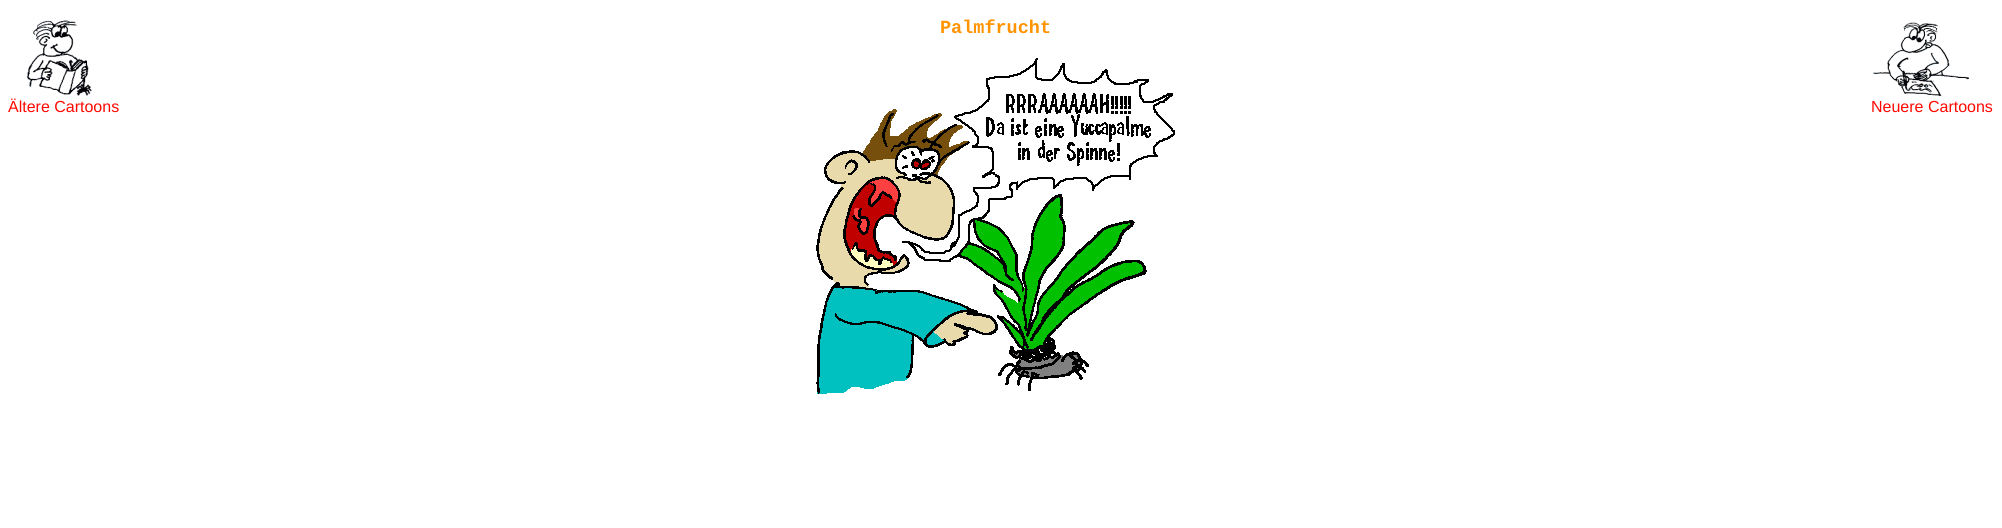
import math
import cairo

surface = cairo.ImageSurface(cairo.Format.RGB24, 2002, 528)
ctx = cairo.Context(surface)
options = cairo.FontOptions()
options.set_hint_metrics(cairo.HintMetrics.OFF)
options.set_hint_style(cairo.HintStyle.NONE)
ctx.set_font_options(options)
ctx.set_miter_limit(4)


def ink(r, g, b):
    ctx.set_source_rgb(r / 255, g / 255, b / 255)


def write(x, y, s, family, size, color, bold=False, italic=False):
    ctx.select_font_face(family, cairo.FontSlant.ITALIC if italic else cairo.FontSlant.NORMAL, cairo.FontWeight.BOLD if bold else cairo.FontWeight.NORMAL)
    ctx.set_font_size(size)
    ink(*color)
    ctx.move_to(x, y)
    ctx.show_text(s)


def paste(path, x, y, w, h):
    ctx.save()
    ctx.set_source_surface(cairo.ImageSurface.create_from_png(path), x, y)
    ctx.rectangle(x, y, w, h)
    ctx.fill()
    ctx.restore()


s1 = dict(family="Liberation Mono", size=18.5, color=(255, 148, 0), bold=True)
s2 = dict(family="Liberation Sans", size=16, color=(255, 8, 0))

ink(255, 255, 255)
ctx.paint()
write(940, 33, "Palmfrucht", **s1)
paste("pic1.png", 816, 58, 359, 336)
paste("pic2.png", 27, 20, 65, 76)
write(8, 112, "Ältere Cartoons", **s2)
paste("pic3.png", 1873, 22, 96, 74)
write(1871, 112, "Neuere Cartoons", **s2)
surface.write_to_png("screenshot.png")
